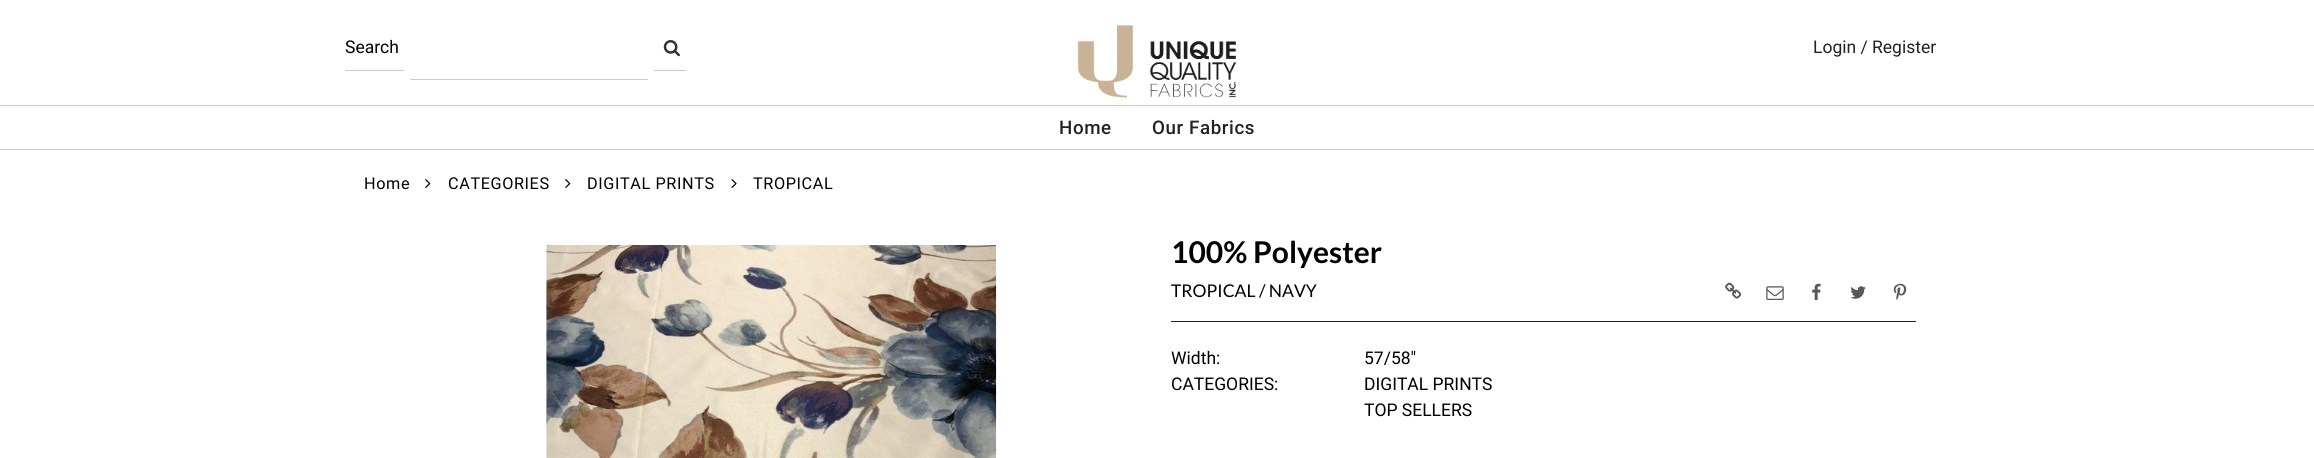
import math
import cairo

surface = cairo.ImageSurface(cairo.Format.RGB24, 2314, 458)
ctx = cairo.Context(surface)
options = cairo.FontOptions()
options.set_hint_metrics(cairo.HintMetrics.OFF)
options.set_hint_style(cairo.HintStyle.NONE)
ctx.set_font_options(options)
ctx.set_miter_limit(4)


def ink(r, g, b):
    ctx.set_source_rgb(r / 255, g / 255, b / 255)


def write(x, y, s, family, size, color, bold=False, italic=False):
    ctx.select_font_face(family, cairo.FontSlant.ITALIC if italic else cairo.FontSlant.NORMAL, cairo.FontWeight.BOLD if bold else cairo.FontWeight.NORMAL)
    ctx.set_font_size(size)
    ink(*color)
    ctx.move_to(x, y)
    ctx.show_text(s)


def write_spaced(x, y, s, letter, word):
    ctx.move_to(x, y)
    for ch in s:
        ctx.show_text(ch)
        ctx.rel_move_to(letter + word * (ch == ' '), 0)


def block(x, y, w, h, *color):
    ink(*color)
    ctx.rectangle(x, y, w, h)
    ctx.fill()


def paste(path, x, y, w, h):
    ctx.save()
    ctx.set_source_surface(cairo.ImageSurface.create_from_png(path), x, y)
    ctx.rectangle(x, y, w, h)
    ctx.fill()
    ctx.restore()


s1 = dict(family="Roboto", size=17.5, color=(0, 0, 0))
s2 = dict(family="Roboto", size=17.5, color=(34, 34, 34))
s3 = dict(family="Lato", size=30, color=(0, 0, 0), bold=True)
s4 = dict(family="Lato", size=17.5, color=(0, 0, 0))

ink(255, 255, 255)
ctx.paint()
write(345, 53, "Search", **s1)
block(345, 70, 59, 1, 204, 204, 204)
paste("pic1.png", 663, 40, 17, 17)
block(654, 70, 32, 1, 204, 204, 204)
block(410, 79, 238, 1, 204, 204, 204)
paste("pic2.png", 1077, 25, 160, 73)
write(1813, 53, "Login / Register", **s2)
block(0, 105, 2314, 1, 204, 204, 204)
block(0, 149, 2314, 1, 204, 204, 204)
ctx.select_font_face("Roboto Medium")
ctx.set_font_size(18.75)
ink(34, 34, 34)
write_spaced(1059, 134, "Home", 0.6, 0)
write_spaced(1152, 134, "Our Fabrics", 0.6, 0)
ctx.select_font_face("Roboto")
ctx.set_font_size(16.25)
ink(0, 0, 0)
write_spaced(364, 189, "Home", 0.6, 0)
paste("pic3.png", 425, 179, 6, 9)
write_spaced(448, 189, "CATEGORIES", 0.6, 0)
paste("pic3.png", 565, 179, 6, 9)
write_spaced(587, 189, "DIGITAL PRINTS", 0.6, 0)
paste("pic4.png", 731, 179, 6, 9)
write_spaced(753, 189, "TROPICAL", 0.6, 0)
paste("pic5.png", 546, 245, 451, 213)
write(1171, 263, "100% Polyester", **s3)
write(1171, 297, "TROPICAL / NAVY", **s4)
paste("pic6.png", 1725, 282, 17, 17)
paste("pic7.png", 1766, 286, 18, 14)
paste("pic8.png", 1812, 283, 9, 17)
paste("pic9.png", 1850, 286, 16, 13)
paste("pic10.png", 1893, 283, 14, 17)
block(1171, 321, 745, 1, 34, 34, 34)
write(1171, 364, "Width:", **s1)
write(1364, 364, "57/58\"", **s1)
write(1171, 390, "CATEGORIES:", **s1)
write(1364, 390, "DIGITAL PRINTS", **s1)
write(1364, 416, "TOP SELLERS", **s1)
surface.write_to_png("screenshot.png")
